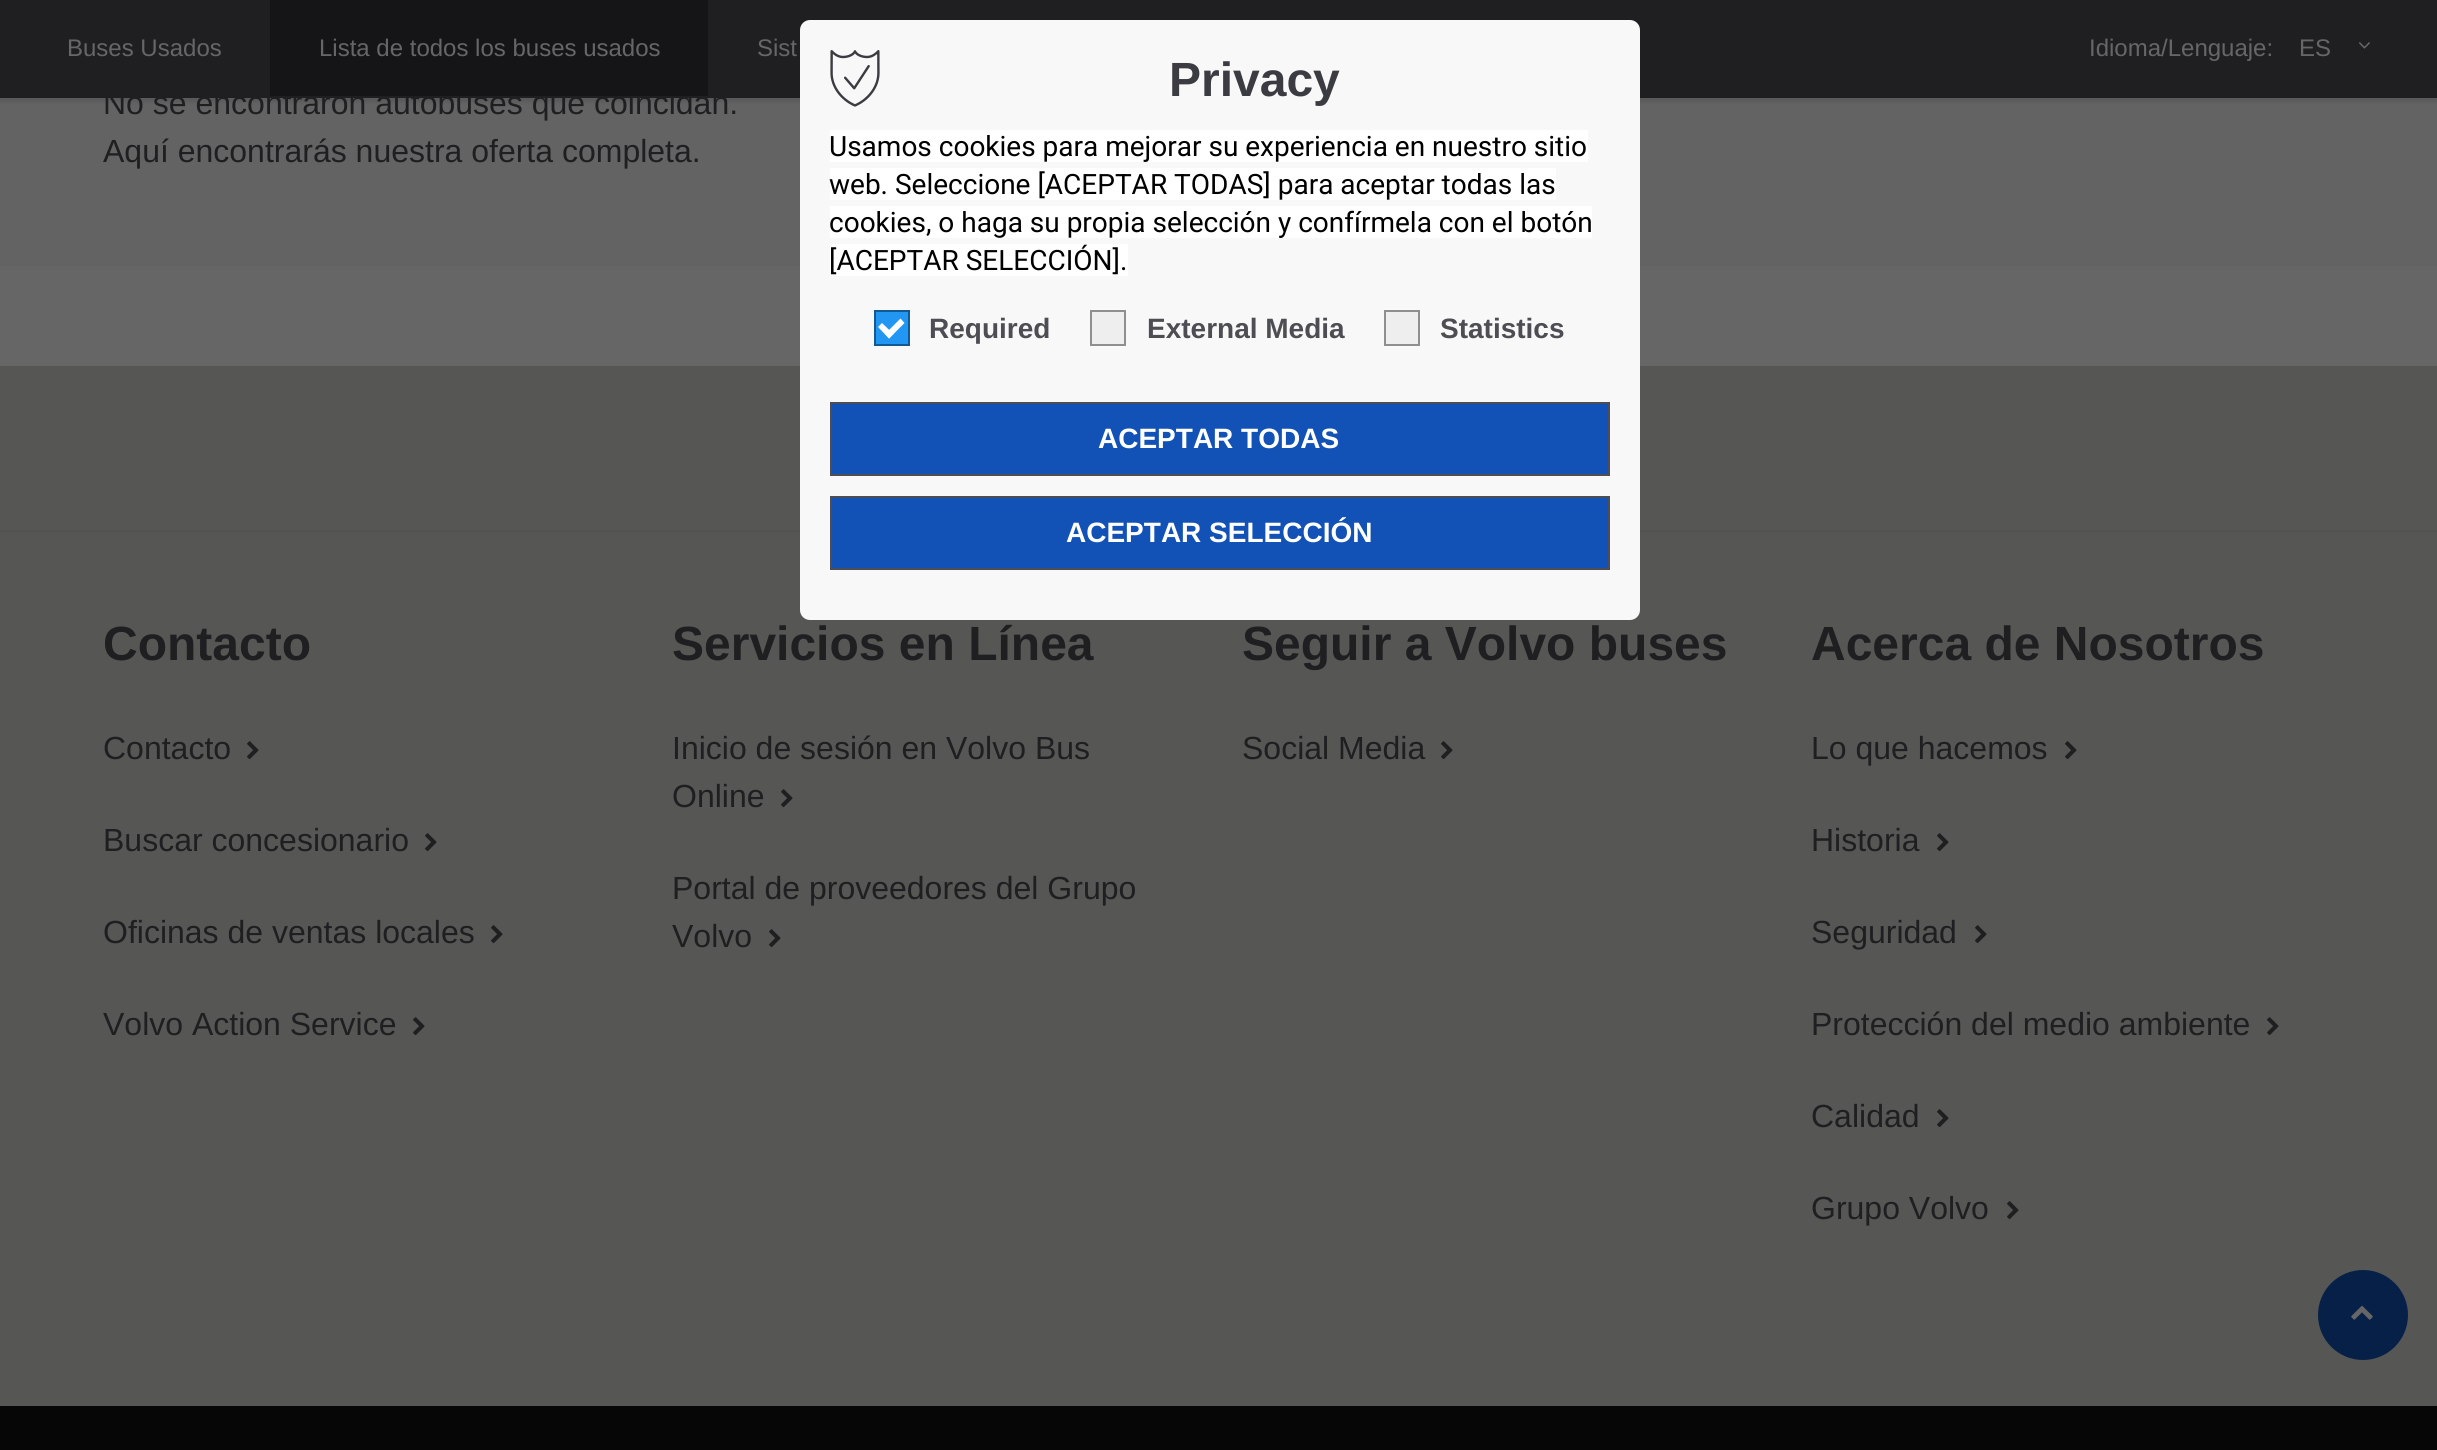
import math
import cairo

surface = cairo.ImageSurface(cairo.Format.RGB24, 2437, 1450)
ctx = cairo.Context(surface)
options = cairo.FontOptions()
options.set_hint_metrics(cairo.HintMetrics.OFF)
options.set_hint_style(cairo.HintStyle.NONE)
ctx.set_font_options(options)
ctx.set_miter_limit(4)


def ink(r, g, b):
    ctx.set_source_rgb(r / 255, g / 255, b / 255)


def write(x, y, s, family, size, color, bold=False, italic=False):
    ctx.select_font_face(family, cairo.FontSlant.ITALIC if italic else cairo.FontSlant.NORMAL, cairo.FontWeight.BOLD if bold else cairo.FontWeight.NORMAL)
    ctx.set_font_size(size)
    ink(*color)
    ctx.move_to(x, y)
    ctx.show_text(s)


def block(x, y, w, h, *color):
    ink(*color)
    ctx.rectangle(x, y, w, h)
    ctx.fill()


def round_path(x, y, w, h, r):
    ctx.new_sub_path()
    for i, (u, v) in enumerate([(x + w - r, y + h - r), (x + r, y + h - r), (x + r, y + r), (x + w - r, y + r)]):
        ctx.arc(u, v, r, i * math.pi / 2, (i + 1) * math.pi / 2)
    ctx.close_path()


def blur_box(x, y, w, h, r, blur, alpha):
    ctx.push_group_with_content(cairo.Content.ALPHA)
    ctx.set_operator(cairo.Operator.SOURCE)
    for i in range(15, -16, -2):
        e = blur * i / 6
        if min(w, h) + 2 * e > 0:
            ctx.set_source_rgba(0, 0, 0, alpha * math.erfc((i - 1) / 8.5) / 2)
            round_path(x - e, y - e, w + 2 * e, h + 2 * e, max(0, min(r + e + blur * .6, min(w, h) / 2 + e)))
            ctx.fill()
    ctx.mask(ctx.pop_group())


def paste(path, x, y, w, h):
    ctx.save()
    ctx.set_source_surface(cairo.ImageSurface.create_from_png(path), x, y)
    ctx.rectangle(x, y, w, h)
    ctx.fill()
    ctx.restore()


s1 = dict(family="Liberation Sans", size=24, color=(102, 102, 102))
s2 = dict(family="Liberation Sans", size=32, color=(31, 31, 33))
s3 = dict(family="Liberation Sans", size=48, color=(59, 60, 66), bold=True)
s4 = dict(family="Roboto", size=28, color=(0, 0, 0))
s5 = dict(family="Liberation Sans", size=28, color=(77, 78, 83), bold=True)
s6 = dict(family="Liberation Sans", size=28, color=(255, 255, 255), bold=True)
s7 = dict(family="Liberation Sans", size=48, color=(31, 31, 33), bold=True)

ink(102, 102, 102)
ctx.paint()
block(0, 98, 2437, 168, 99, 99, 99)
ink(0, 0, 0)
blur_box(-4, -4, 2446, 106, 0, 2, 0.1)
block(0, 0, 2437, 98, 31, 31, 33)
write(67, 56, "Buses Usados", **s1)
write(103, 114, "No se encontraron autobuses que coincidan.", **s2)
block(270, 0, 438, 96, 21, 21, 23)
write(319, 56, "Lista de todos los buses usados", **s1)
write(757, 56, "Sist", **s1)
write(2089, 56, "Idioma/Lenguaje:", **s1)
write(2299, 56, "ES", **s1)
paste("pic1.png", 2358, 42, 12, 7)
block(0, 366, 2437, 164, 86, 86, 85)
block(0, 530, 2437, 2, 82, 82, 82)
block(0, 532, 2437, 874, 86, 86, 85)
ink(248, 248, 248)
round_path(800, 20, 840, 600, 10)
ctx.fill()
paste("pic2.png", 830, 50, 50, 57)
write(1169, 96, "Privacy", **s3)
block(830, 130, 758, 32, 255, 255, 255)
write(829, 156, "Usamos cookies para mejorar su experiencia en nuestro sitio", **s4)
block(830, 168, 726, 32, 255, 255, 255)
write(829, 194, "web. Seleccione [ACEPTAR TODAS] para aceptar todas las", **s4)
block(830, 206, 762, 32, 255, 255, 255)
write(829, 232, "cookies, o haga su propia selección y confírmela con el botón", **s4)
block(830, 244, 298, 32, 255, 255, 255)
write(829, 270, "[ACEPTAR SELECCIÓN].", **s4)
ink(33, 150, 243)
ctx.rectangle(875, 311, 34, 34)
ctx.fill_preserve()
ink(20, 90, 146)
ctx.stroke()
ink(255, 255, 255)
ctx.new_path()
ctx.move_to(900.5, 318.5)
ctx.line_to(904.5, 323)
ctx.line_to(889, 338.5)
ctx.line_to(885, 334)
ctx.close_path()
ctx.fill()
ctx.new_path()
ctx.move_to(882, 323)
ctx.line_to(893.5, 334)
ctx.line_to(889, 338.5)
ctx.line_to(878, 327)
ctx.close_path()
ctx.fill()
write(929, 338, "Required", **s5)
ink(238, 238, 238)
ctx.rectangle(1091, 311, 34, 34)
ctx.fill_preserve()
ink(143, 143, 143)
ctx.stroke()
write(1147, 338, "External Media", **s5)
ink(238, 238, 238)
ctx.rectangle(1385, 311, 34, 34)
ctx.fill_preserve()
ink(143, 143, 143)
ctx.stroke()
write(1440, 338, "Statistics", **s5)
ink(18, 81, 181)
ctx.rectangle(831, 403, 778, 72)
ctx.fill_preserve()
ink(77, 78, 83)
ctx.stroke()
write(1098, 448, "ACEPTAR TODAS", **s6)
ink(18, 81, 181)
ctx.rectangle(831, 497, 778, 72)
ctx.fill_preserve()
ink(77, 78, 83)
ctx.stroke()
write(1066, 542, "ACEPTAR SELECCIÓN", **s6)
write(103, 162, "Aquí encontrarás nuestra oferta completa.", **s2)
write(103, 660, "Contacto", **s7)
write(103, 759, "Contacto", **s2)
paste("pic3.png", 247, 741, 12, 19)
write(103, 851, "Buscar concesionario", **s2)
paste("pic3.png", 425, 833, 12, 19)
write(103, 943, "Oficinas de ventas locales", **s2)
paste("pic3.png", 491, 925, 12, 19)
write(103, 1035, "Volvo Action Service", **s2)
paste("pic3.png", 413, 1017, 12, 19)
write(672, 660, "Servicios en Línea", **s7)
write(672, 759, "Inicio de sesión en Volvo Bus", **s2)
write(672, 807, "Online", **s2)
paste("pic3.png", 781, 789, 12, 19)
write(672, 899, "Portal de proveedores del Grupo", **s2)
write(672, 947, "Volvo", **s2)
paste("pic3.png", 769, 929, 12, 19)
write(1242, 660, "Seguir a Volvo buses", **s7)
write(1242, 759, "Social Media", **s2)
paste("pic3.png", 1441, 741, 12, 19)
write(1811, 660, "Acerca de Nosotros", **s7)
write(1811, 759, "Lo que hacemos", **s2)
paste("pic3.png", 2065, 741, 12, 19)
write(1811, 851, "Historia", **s2)
paste("pic3.png", 1937, 833, 12, 19)
write(1811, 943, "Seguridad", **s2)
paste("pic3.png", 1975, 925, 12, 19)
write(1811, 1035, "Protección del medio ambiente", **s2)
paste("pic3.png", 2267, 1017, 12, 19)
write(1811, 1127, "Calidad", **s2)
paste("pic3.png", 1937, 1109, 12, 19)
write(1811, 1219, "Grupo Volvo", **s2)
paste("pic3.png", 2007, 1201, 12, 19)
block(0, 1406, 2437, 44, 6, 6, 6)
ink(7, 32, 72)
ctx.arc(2363, 1315, 44, 0, 2 * math.pi)
ctx.fill_preserve()
ctx.stroke()
paste("pic4.png", 2351, 1305, 22, 15)
surface.write_to_png("screenshot.png")
